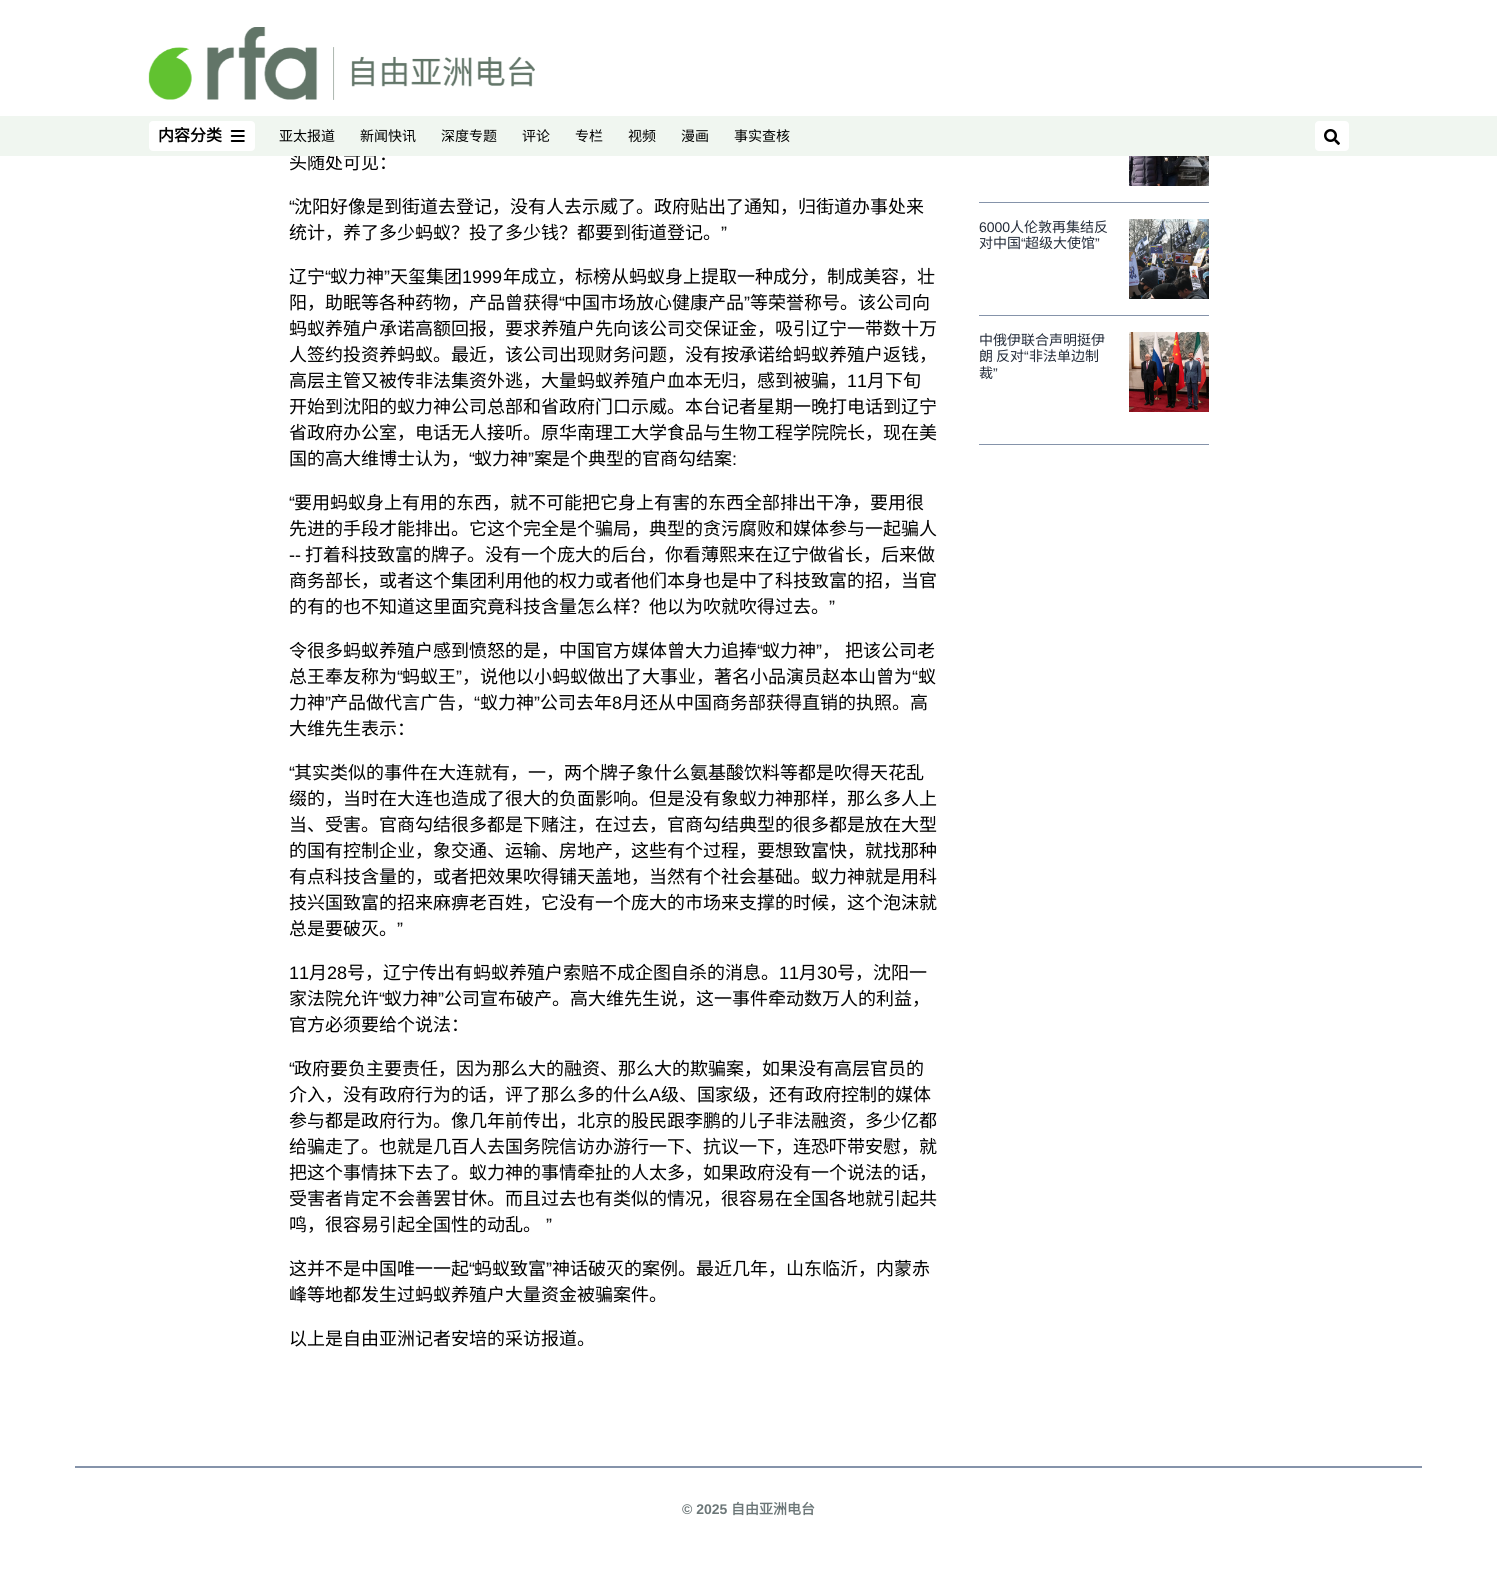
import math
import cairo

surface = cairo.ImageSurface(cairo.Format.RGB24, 1497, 1578)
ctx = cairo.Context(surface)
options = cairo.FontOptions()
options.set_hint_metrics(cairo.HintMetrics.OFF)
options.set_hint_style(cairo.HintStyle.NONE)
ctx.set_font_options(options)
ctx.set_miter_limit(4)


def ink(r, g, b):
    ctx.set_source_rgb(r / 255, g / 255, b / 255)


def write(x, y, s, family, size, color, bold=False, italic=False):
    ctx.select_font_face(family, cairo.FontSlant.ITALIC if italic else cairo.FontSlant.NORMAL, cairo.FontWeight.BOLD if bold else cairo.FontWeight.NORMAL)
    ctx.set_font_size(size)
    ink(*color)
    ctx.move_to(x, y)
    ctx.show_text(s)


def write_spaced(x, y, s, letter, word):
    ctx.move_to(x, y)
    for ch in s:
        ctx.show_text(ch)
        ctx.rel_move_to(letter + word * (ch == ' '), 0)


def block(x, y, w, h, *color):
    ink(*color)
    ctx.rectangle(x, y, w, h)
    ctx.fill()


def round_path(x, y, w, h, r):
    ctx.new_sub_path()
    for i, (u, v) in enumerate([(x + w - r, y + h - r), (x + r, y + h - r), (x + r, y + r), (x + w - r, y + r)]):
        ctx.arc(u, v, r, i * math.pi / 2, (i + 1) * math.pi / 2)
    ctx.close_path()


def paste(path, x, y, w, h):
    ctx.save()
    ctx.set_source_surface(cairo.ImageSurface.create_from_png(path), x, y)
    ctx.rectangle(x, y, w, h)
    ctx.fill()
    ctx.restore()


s1 = dict(family="Noto Sans CJK SC", size=18, color=(0, 0, 0))
s2 = dict(family="Noto Sans CJK SC", size=16, color=(0, 0, 0), bold=True)
s3 = dict(family="Noto Sans CJK SC", size=14, color=(0, 0, 0))
s4 = dict(family="Liberation Sans", size=18, color=(0, 0, 0))
s5 = dict(family="Liberation Sans", size=14, color=(35, 43, 57))
s6 = dict(family="Noto Sans CJK SC", size=14, color=(35, 43, 57))
s7 = dict(family="Liberation Sans", size=14, color=(108, 119, 120), bold=True)
s8 = dict(family="Noto Sans CJK SC", size=14, color=(108, 119, 120), bold=True)

ink(255, 255, 255)
ctx.paint()
paste("pic1.png", 148, 27, 387, 73)
write(289, 169, "头随处可见：", **s1)
block(0, 116, 1497, 40, 240, 246, 240)
ink(255, 255, 255)
round_path(149.5, 121.5, 105, 29, 3.5)
ctx.fill_preserve()
ctx.set_line_width(1)
ctx.stroke()
write(158, 141, "内容分类", **s2)
paste("pic2.png", 230, 130, 15, 12)
write(279, 141, "亚太报道", **s3)
write(360, 141, "新闻快讯", **s3)
write(441, 141, "深度专题", **s3)
write(522, 141, "评论", **s3)
write(575, 141, "专栏", **s3)
write(628, 141, "视频", **s3)
write(681, 141, "漫画", **s3)
write(734, 141, "事实查核", **s3)
ink(255, 255, 255)
round_path(1315.5, 121.5, 33, 29, 3.5)
ctx.fill_preserve()
ctx.stroke()
paste("pic3.png", 1324, 129, 16, 16)
write(289, 213, "“", **s4)
write(294, 213, "沈阳好像是到街道去登记，没有人去示威了。政府贴出了通知，归街道办事处来", **s1)
write(289, 239, "统计，养了多少蚂蚁？投了多少钱？都要到街道登记。", **s1)
write(721, 239, "”", **s4)
write(289, 283, "辽宁", **s1)
write(325, 283, "“", **s4)
write(330, 283, "蚁力神", **s1)
write(384, 283, "”", **s4)
write(390, 283, "天玺集团", **s1)
write(462, 283, "1999", **s4)
write(503, 283, "年成立，标榜从蚂蚁身上提取一种成分，制成美容，壮", **s1)
write(289, 309, "阳，助眠等各种药物，产品曾获得", **s1)
write(559, 309, "“", **s4)
write(564, 309, "中国市场放心健康产品", **s1)
write(744, 309, "”", **s4)
write(750, 309, "等荣誉称号。该公司向", **s1)
write(289, 335, "蚂蚁养殖户承诺高额回报，要求养殖户先向该公司交保证金，吸引辽宁一带数十万", **s1)
write(289, 361, "人签约投资养蚂蚁。最近，该公司出现财务问题，没有按承诺给蚂蚁养殖户返钱，", **s1)
write(289, 387, "高层主管又被传非法集资外逃，大量蚂蚁养殖户血本无归，感到被骗，", **s1)
write(847, 387, "11", **s4)
write(867, 387, "月下旬", **s1)
write(289, 413, "开始到沈阳的蚁力神公司总部和省政府门口示威。本台记者星期一晚打电话到辽宁", **s1)
write(289, 439, "省政府办公室，电话无人接听。原华南理工大学食品与生物工程学院院长，现在美", **s1)
write(289, 465, "国的高大维博士认为，", **s1)
write(469, 465, "“", **s4)
write(474, 465, "蚁力神", **s1)
write(528, 465, "”", **s4)
write(534, 465, "案是个典型的官商勾结案", **s1)
write(732, 465, ":", **s4)
write(289, 509, "“", **s4)
write(294, 509, "要用蚂蚁身上有用的东西，就不可能把它身上有害的东西全部排出干净，要用很", **s1)
write(289, 535, "先进的手段才能排出。它这个完全是个骗局，典型的贪污腐败和媒体参与一起骗人", **s1)
write(289, 561, "--", **s4)
write(305, 561, "打着科技致富的牌子。没有一个庞大的后台，你看薄熙来在辽宁做省长，后来做", **s1)
write(289, 587, "商务部长，或者这个集团利用他的权力或者他们本身也是中了科技致富的招，当官", **s1)
write(289, 613, "的有的也不知道这里面究竟科技含量怎么样？他以为吹就吹得过去。", **s1)
write(829, 613, "”", **s4)
write(289, 657, "令很多蚂蚁养殖户感到愤怒的是，中国官方媒体曾大力追捧", **s1)
write(757, 657, "“", **s4)
write(762, 657, "蚁力神", **s1)
write(816, 657, "”", **s4)
ctx.select_font_face("Noto Sans CJK SC")
write_spaced(822, 657, "， 把该公司老", 0, 1)
write(289, 683, "总王奉友称为", **s1)
write(397, 683, "“", **s4)
write(402, 683, "蚂蚁王", **s1)
write(456, 683, "”", **s4)
write(462, 683, "，说他以小蚂蚁做出了大事业，著名小品演员赵本山曾为", **s1)
write(912, 683, "“", **s4)
write(918, 683, "蚁", **s1)
write(289, 709, "力神", **s1)
write(325, 709, "”", **s4)
write(330, 709, "产品做代言广告，", **s1)
write(474, 709, "“", **s4)
write(480, 709, "蚁力神", **s1)
write(534, 709, "”", **s4)
write(540, 709, "公司去年", **s1)
write(612, 709, "8", **s4)
write(622, 709, "月还从中国商务部获得直销的执照。高", **s1)
write(289, 735, "大维先生表示：", **s1)
write(289, 779, "“", **s4)
write(294, 779, "其实类似的事件在大连就有，一，两个牌子象什么氨基酸饮料等都是吹得天花乱", **s1)
write(289, 805, "缀的，当时在大连也造成了很大的负面影响。但是没有象蚁力神那样，那么多人上", **s1)
write(289, 831, "当、受害。官商勾结很多都是下赌注，在过去，官商勾结典型的很多都是放在大型", **s1)
write(289, 857, "的国有控制企业，象交通、运输、房地产，这些有个过程，要想致富快，就找那种", **s1)
write(289, 883, "有点科技含量的，或者把效果吹得铺天盖地，当然有个社会基础。蚁力神就是用科", **s1)
write(289, 909, "技兴国致富的招来麻痹老百姓，它没有一个庞大的市场来支撑的时候，这个泡沫就", **s1)
write(289, 935, "总是要破灭。", **s1)
write(397, 935, "”", **s4)
write(289, 979, "11", **s4)
write(309, 979, "月", **s1)
write(327, 979, "28", **s4)
write(347, 979, "号，辽宁传出有蚂蚁养殖户索赔不成企图自杀的消息。", **s1)
write(779, 979, "11", **s4)
write(799, 979, "月", **s1)
write(817, 979, "30", **s4)
write(837, 979, "号，沈阳一", **s1)
write(289, 1005, "家法院允许", **s1)
write(379, 1005, "“", **s4)
write(384, 1005, "蚁力神", **s1)
write(438, 1005, "”", **s4)
write(444, 1005, "公司宣布破产。高大维先生说，这一事件牵动数万人的利益，", **s1)
write(289, 1031, "官方必须要给个说法：", **s1)
write(289, 1075, "“", **s4)
write(294, 1075, "政府要负主要责任，因为那么大的融资、那么大的欺骗案，如果没有高层官员的", **s1)
write(289, 1101, "介入，没有政府行为的话，评了那么多的什么", **s1)
write(649, 1101, "A", **s4)
write(661, 1101, "级、国家级，还有政府控制的媒体", **s1)
write(289, 1127, "参与都是政府行为。像几年前传出，北京的股民跟李鹏的儿子非法融资，多少亿都", **s1)
write(289, 1153, "给骗走了。也就是几百人去国务院信访办游行一下、抗议一下，连恐吓带安慰，就", **s1)
write(289, 1179, "把这个事情抹下去了。蚁力神的事情牵扯的人太多，如果政府没有一个说法的话，", **s1)
write(289, 1205, "受害者肯定不会善罢甘休。而且过去也有类似的情况，很容易在全国各地就引起共", **s1)
write(289, 1231, "鸣，很容易引起全国性的动乱。", **s1)
write(546, 1231, "”", **s4)
write(289, 1275, "这并不是中国唯一一起", **s1)
write(469, 1275, "“", **s4)
write(474, 1275, "蚂蚁致富", **s1)
write(546, 1275, "”", **s4)
write(552, 1275, "神话破灭的案例。最近几年，山东临沂，内蒙赤", **s1)
write(289, 1301, "峰等地都发生过蚂蚁养殖户大量资金被骗案件。", **s1)
write(289, 1345, "以上是自由亚洲记者安培的采访报道。", **s1)
paste("pic4.png", 1129, 156, 80, 30)
block(979, 202, 230, 1, 133, 147, 170)
write(979, 232, "6000", **s5)
write(1010, 232, "人伦敦再集结反", **s6)
write(979, 248, "对中国", **s6)
write(1021, 248, "“", **s5)
write(1025, 248, "超级大使馆", **s6)
write(1095, 248, "”", **s5)
paste("pic5.png", 1129, 219, 80, 80)
block(979, 315, 230, 1, 133, 147, 170)
write(979, 345, "中俄伊联合声明挺伊", **s6)
write(979, 361, "朗", **s6)
write(996, 361, "反对", **s6)
write(1024, 361, "“", **s5)
write(1029, 361, "非法单边制", **s6)
write(979, 378, "裁", **s6)
write(993, 378, "”", **s5)
paste("pic6.png", 1129, 332, 80, 80)
block(979, 444, 230, 1, 133, 147, 170)
block(75, 1466, 1347, 2, 133, 147, 170)
write(682, 1514, "© 2025", **s7)
write(731, 1514, "自由亚洲电台", **s8)
surface.write_to_png("screenshot.png")
